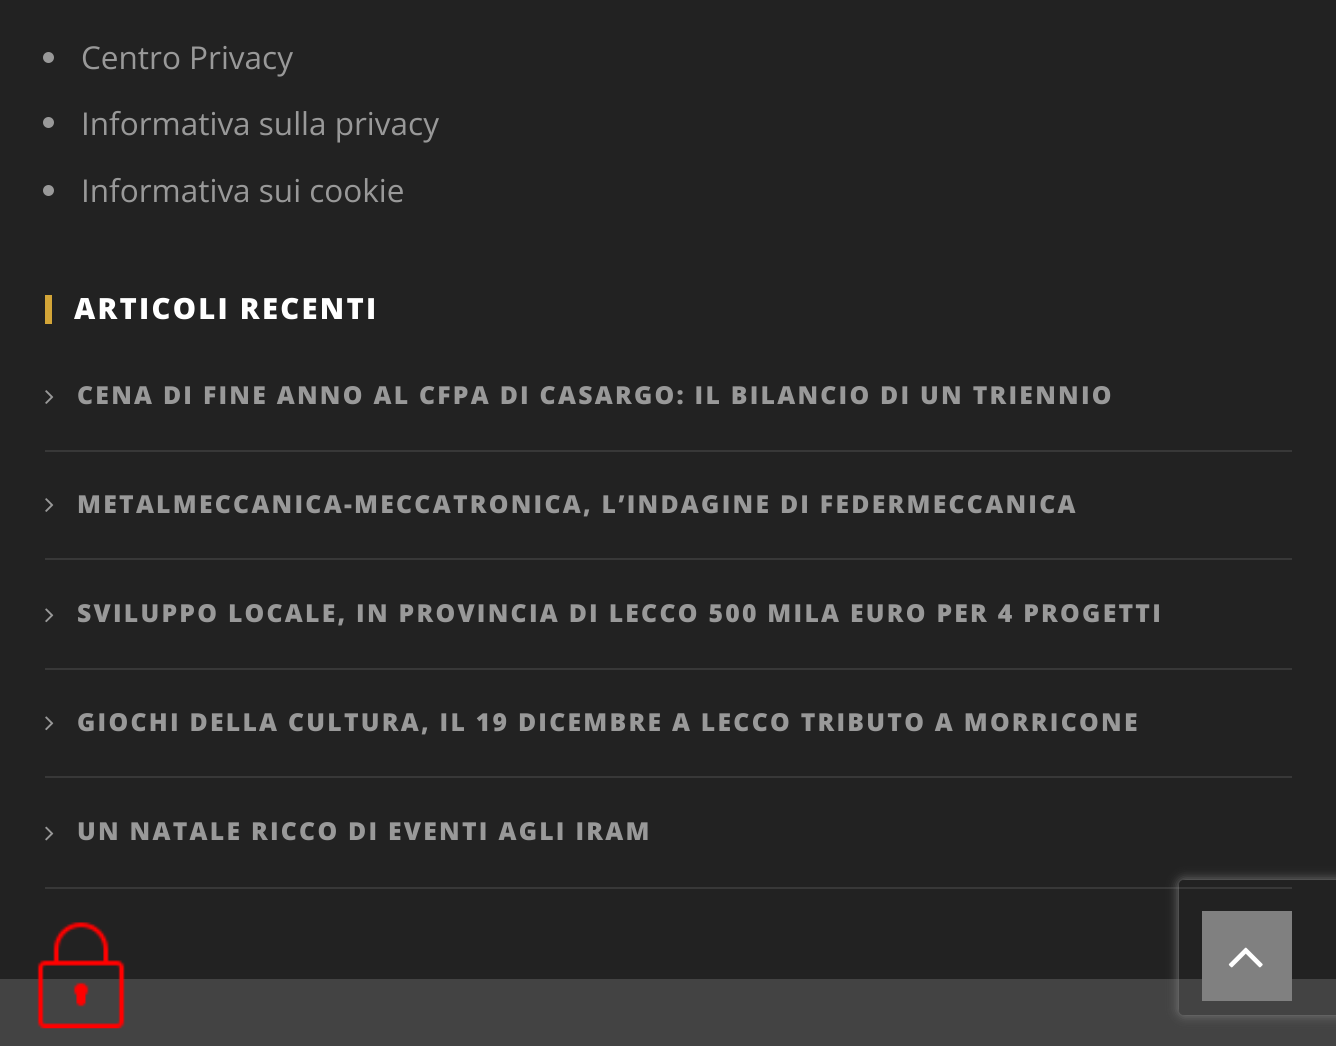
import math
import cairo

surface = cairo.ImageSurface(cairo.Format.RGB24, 1336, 1046)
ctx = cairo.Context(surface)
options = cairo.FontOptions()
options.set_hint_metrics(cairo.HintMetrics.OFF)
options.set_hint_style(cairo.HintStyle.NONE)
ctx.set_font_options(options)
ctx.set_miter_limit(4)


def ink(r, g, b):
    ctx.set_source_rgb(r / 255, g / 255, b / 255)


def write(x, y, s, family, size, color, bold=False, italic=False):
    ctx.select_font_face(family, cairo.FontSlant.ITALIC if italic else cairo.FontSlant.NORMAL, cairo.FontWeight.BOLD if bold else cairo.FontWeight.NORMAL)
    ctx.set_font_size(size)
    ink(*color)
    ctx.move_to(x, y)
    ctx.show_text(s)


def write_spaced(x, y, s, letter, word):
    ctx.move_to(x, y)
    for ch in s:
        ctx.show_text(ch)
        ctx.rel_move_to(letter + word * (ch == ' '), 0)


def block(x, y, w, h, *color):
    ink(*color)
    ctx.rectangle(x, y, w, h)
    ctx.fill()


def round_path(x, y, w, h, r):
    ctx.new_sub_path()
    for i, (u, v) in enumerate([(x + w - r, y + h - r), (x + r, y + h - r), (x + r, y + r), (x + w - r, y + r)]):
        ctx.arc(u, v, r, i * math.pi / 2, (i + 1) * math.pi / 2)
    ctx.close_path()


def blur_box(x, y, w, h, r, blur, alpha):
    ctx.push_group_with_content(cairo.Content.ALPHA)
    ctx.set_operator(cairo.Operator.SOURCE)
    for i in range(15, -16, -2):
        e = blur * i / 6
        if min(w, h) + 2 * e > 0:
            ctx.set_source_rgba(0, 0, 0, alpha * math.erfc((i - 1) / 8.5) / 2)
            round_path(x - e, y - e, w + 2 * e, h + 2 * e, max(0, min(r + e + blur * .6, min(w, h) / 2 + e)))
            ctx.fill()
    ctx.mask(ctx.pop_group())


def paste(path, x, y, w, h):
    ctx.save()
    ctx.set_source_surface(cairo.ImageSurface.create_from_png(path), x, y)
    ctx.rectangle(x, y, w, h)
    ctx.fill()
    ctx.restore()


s1 = dict(family="Open Sans", size=31.5, color=(153, 153, 153))

ink(34, 34, 34)
ctx.paint()
ink(153, 153, 153)
ctx.arc(48.5, 57.5, 5.5, 0, 2 * math.pi)
ctx.fill()
write(81, 69, "Centro Privacy", **s1)
ctx.new_path()
ctx.arc(48.5, 122.5, 5.5, 0, 2 * math.pi)
ctx.fill()
write(81, 135, "Informativa sulla privacy", **s1)
ctx.new_path()
ctx.arc(48.5, 190.5, 5.5, 0, 2 * math.pi)
ctx.fill()
write(81, 202, "Informativa sui cookie", **s1)
block(45, 295, 7, 29, 211, 165, 56)
ctx.select_font_face("Open Sans ExtraBold")
ctx.set_font_size(29.25)
ink(255, 255, 255)
write_spaced(74, 319, "ARTICOLI RECENTI", 2.25, 0)
block(45, 450, 1247, 2, 56, 56, 56)
paste("pic1.png", 45, 390, 9, 14)
ctx.set_font_size(24.75)
ink(153, 153, 153)
write_spaced(77, 404, "CENA DI FINE ANNO AL CFPA DI CASARGO: IL BILANCIO DI UN TRIENNIO", 2.25, 0)
block(45, 558, 1247, 2, 56, 56, 56)
paste("pic1.png", 45, 498, 9, 14)
ink(153, 153, 153)
write_spaced(77, 513, "METALMECCANICA-MECCATRONICA, L’INDAGINE DI FEDERMECCANICA", 2.25, 0)
block(45, 668, 1247, 2, 56, 56, 56)
paste("pic2.png", 45, 608, 9, 15)
ink(153, 153, 153)
write_spaced(77, 622, "SVILUPPO LOCALE, IN PROVINCIA DI LECCO 500 MILA EURO PER 4 PROGETTI", 2.25, 0)
block(45, 776, 1247, 2, 56, 56, 56)
paste("pic2.png", 45, 716, 9, 15)
ink(153, 153, 153)
write_spaced(77, 731, "GIOCHI DELLA CULTURA, IL 19 DICEMBRE A LECCO TRIBUTO A MORRICONE", 2.25, 0)
block(45, 887, 1247, 2, 56, 56, 56)
paste("pic3.png", 45, 826, 9, 15)
ink(153, 153, 153)
write_spaced(77, 840, "UN NATALE RICCO DI EVENTI AGLI IRAM", 2.25, 0)
block(0, 979, 1336, 67, 67, 67, 67)
ctx.save()
ctx.set_fill_rule(cairo.FillRule.EVEN_ODD)
ctx.new_path()
ctx.move_to(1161, 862)
ctx.line_to(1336, 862)
ctx.line_to(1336, 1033)
ctx.line_to(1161, 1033)
ctx.close_path()
ctx.move_to(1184, 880)
ctx.line_to(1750, 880)
ctx.curve_to(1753, 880, 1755, 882, 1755, 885)
ctx.line_to(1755, 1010)
ctx.curve_to(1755, 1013, 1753, 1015, 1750, 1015)
ctx.line_to(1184, 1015)
ctx.curve_to(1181, 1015, 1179, 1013, 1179, 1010)
ctx.line_to(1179, 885)
ctx.curve_to(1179, 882, 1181, 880, 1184, 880)
ctx.close_path()
ctx.clip()
ink(128, 128, 128)
blur_box(1179, 880, 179, 135, 5, 5.5, 1)
ctx.restore()
block(1202, 911, 90, 90, 128, 128, 128)
paste("pic4.png", 1228, 947, 35, 21)
paste("pic5.png", 37, 922, 88, 107)
surface.write_to_png("screenshot.png")
